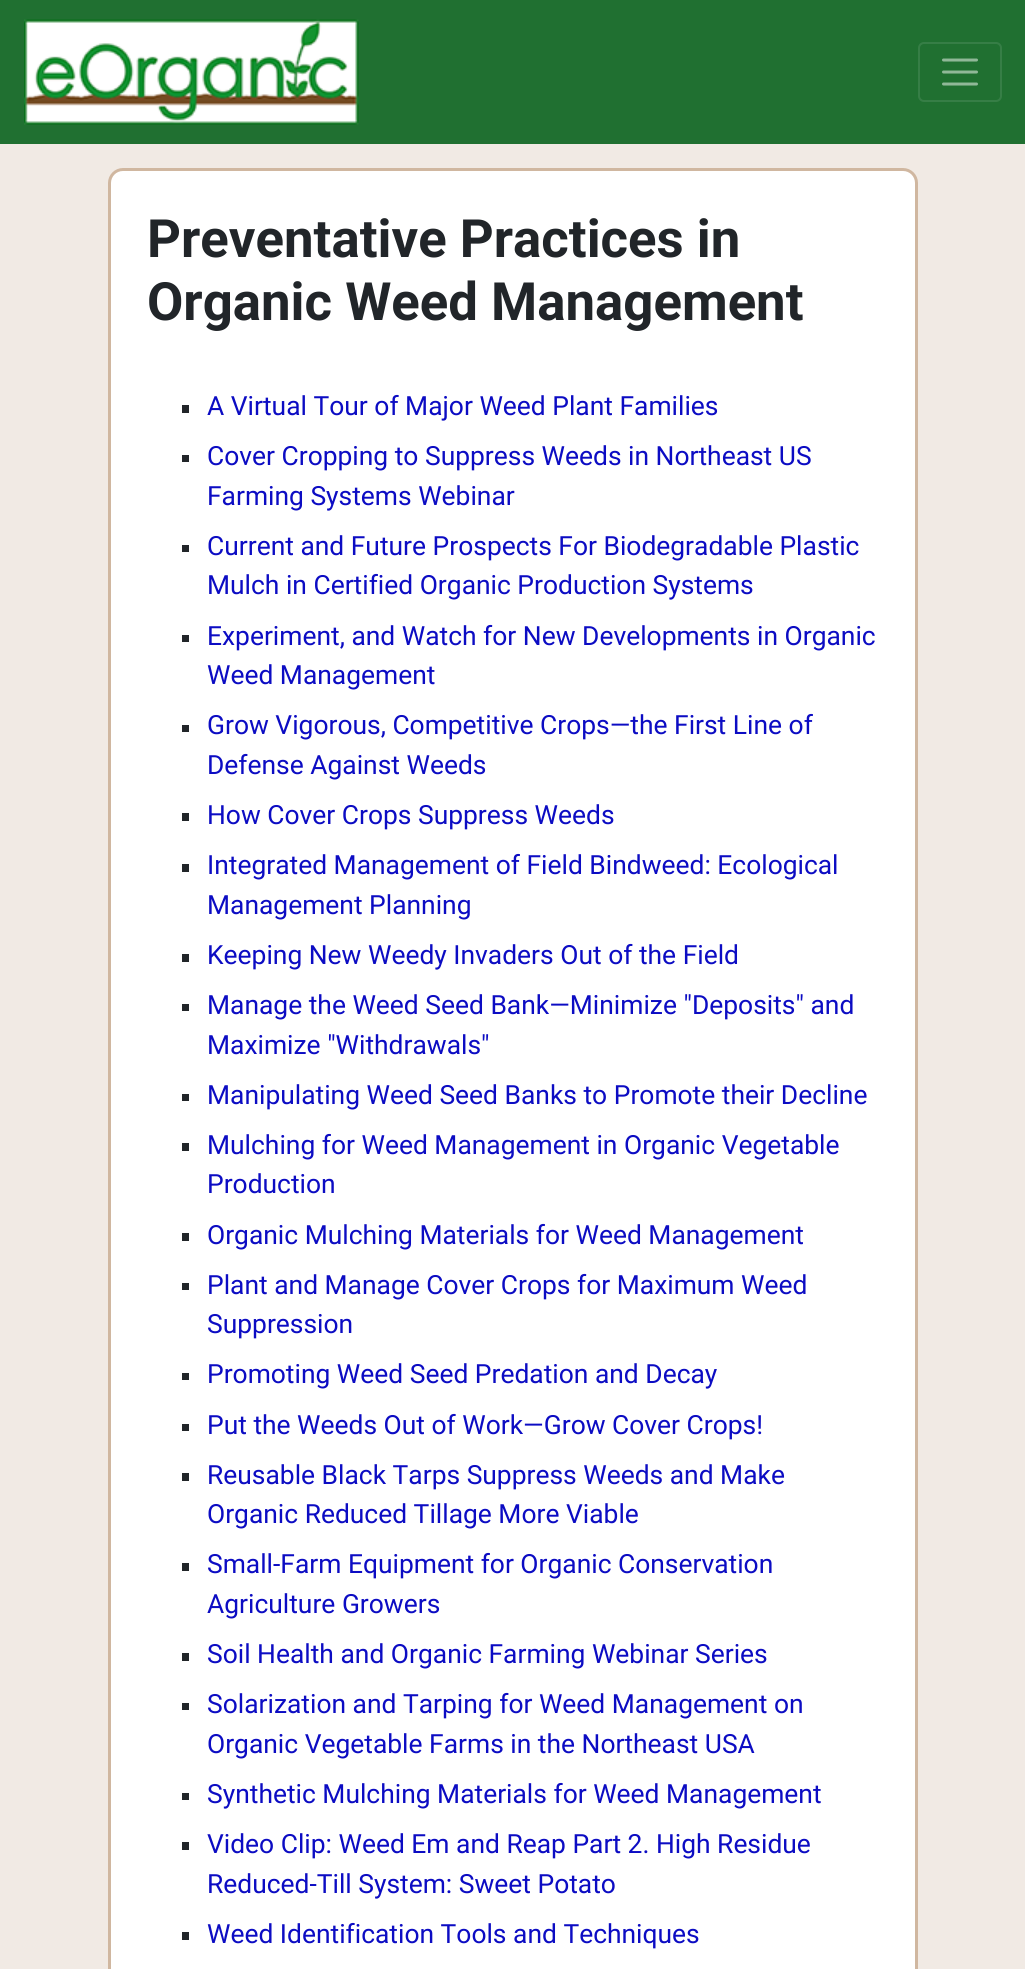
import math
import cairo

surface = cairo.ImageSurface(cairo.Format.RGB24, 1025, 1969)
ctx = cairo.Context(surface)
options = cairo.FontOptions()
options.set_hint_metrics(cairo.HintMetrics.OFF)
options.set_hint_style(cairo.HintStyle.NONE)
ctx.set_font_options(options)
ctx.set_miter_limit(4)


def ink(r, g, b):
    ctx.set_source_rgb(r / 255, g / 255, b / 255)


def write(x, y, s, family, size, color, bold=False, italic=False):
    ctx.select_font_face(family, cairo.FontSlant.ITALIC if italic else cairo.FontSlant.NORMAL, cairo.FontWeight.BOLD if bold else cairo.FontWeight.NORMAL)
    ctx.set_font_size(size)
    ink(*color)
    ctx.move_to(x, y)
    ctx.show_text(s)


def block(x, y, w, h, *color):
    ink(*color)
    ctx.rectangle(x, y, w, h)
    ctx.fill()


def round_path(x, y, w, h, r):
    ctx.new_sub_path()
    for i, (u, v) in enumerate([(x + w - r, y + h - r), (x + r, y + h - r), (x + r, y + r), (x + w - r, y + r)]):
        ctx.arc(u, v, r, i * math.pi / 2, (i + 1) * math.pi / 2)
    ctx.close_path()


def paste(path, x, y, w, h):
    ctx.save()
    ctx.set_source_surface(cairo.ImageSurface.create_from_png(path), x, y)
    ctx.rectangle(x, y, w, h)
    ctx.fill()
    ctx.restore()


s1 = dict(family="Roboto", size=52.75, color=(33, 37, 41), bold=True)
s2 = dict(family="Roboto", size=26.4, color=(12, 12, 195))

ink(241, 234, 228)
ctx.paint()
block(0, 0, 1025, 144, 32, 112, 49)
paste("pic1.png", 24, 19, 335, 106)
round_path(919, 43, 82, 58, 5)
ink(54, 126, 70)
ctx.stroke()
ctx.new_path()
ctx.move_to(943.5, 60)
ctx.line_to(976.5, 60)
ctx.move_to(943.5, 72)
ctx.line_to(976.5, 72)
ctx.move_to(943.5, 84)
ctx.line_to(976.5, 84)
ink(144, 184, 152)
ctx.set_line_width(3)
ctx.set_line_cap(cairo.LineCap.ROUND)
ctx.stroke()
ink(255, 255, 255)
round_path(109.5, 169.5, 807, 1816, 13.5)
ctx.fill_preserve()
ink(208, 183, 160)
ctx.set_line_cap(cairo.LineCap.BUTT)
ctx.stroke()
write(147, 257, "Preventative Practices in", **s1)
write(147, 320, "Organic Weed Management", **s1)
block(182, 405, 7, 8, 33, 37, 41)
write(207, 415, "A Virtual Tour of Major Weed Plant Families", **s2)
block(182, 455, 7, 7, 33, 37, 41)
write(207, 465, "Cover Cropping to Suppress Weeds in Northeast US", **s2)
write(207, 505, "Farming Systems Webinar", **s2)
block(182, 545, 7, 7, 33, 37, 41)
write(207, 555, "Current and Future Prospects For Biodegradable Plastic", **s2)
write(207, 594, "Mulch in Certified Organic Production Systems", **s2)
block(182, 635, 7, 7, 33, 37, 41)
write(207, 645, "Experiment, and Watch for New Developments in Organic", **s2)
write(207, 684, "Weed Management", **s2)
block(182, 725, 7, 7, 33, 37, 41)
write(207, 734, "Grow Vigorous, Competitive Crops—the First Line of", **s2)
write(207, 774, "Defense Against Weeds", **s2)
block(182, 813, 7, 8, 33, 37, 41)
write(207, 824, "How Cover Crops Suppress Weeds", **s2)
block(182, 864, 7, 8, 33, 37, 41)
write(207, 874, "Integrated Management of Field Bindweed: Ecological", **s2)
write(207, 914, "Management Planning", **s2)
block(182, 954, 7, 8, 33, 37, 41)
write(207, 964, "Keeping New Weedy Invaders Out of the Field", **s2)
block(182, 1004, 7, 7, 33, 37, 41)
write(207, 1014, "Manage the Weed Seed Bank—Minimize \"Deposits\" and", **s2)
write(207, 1054, "Maximize \"Withdrawals\"", **s2)
block(182, 1094, 7, 7, 33, 37, 41)
write(207, 1104, "Manipulating Weed Seed Banks to Promote their Decline", **s2)
block(182, 1143, 7, 8, 33, 37, 41)
write(207, 1154, "Mulching for Weed Management in Organic Vegetable", **s2)
write(207, 1193, "Production", **s2)
block(182, 1233, 7, 8, 33, 37, 41)
write(207, 1244, "Organic Mulching Materials for Weed Management", **s2)
block(182, 1283, 7, 7, 33, 37, 41)
write(207, 1294, "Plant and Manage Cover Crops for Maximum Weed", **s2)
write(207, 1333, "Suppression", **s2)
block(182, 1373, 7, 7, 33, 37, 41)
write(207, 1383, "Promoting Weed Seed Predation and Decay", **s2)
block(182, 1424, 7, 7, 33, 37, 41)
write(207, 1434, "Put the Weeds Out of Work—Grow Cover Crops!", **s2)
block(182, 1473, 7, 8, 33, 37, 41)
write(207, 1484, "Reusable Black Tarps Suppress Weeds and Make", **s2)
write(207, 1523, "Organic Reduced Tillage More Viable", **s2)
block(182, 1563, 7, 8, 33, 37, 41)
write(207, 1573, "Small-Farm Equipment for Organic Conservation", **s2)
write(207, 1613, "Agriculture Growers", **s2)
block(182, 1653, 7, 8, 33, 37, 41)
write(207, 1663, "Soil Health and Organic Farming Webinar Series", **s2)
block(182, 1703, 7, 7, 33, 37, 41)
write(207, 1713, "Solarization and Tarping for Weed Management on", **s2)
write(207, 1753, "Organic Vegetable Farms in the Northeast USA", **s2)
block(182, 1793, 7, 7, 33, 37, 41)
write(207, 1803, "Synthetic Mulching Materials for Weed Management", **s2)
block(182, 1842, 7, 8, 33, 37, 41)
write(207, 1853, "Video Clip: Weed Em and Reap Part 2. High Residue", **s2)
write(207, 1893, "Reduced-Till System: Sweet Potato", **s2)
block(182, 1932, 7, 8, 33, 37, 41)
write(207, 1943, "Weed Identification Tools and Techniques", **s2)
surface.write_to_png("screenshot.png")
